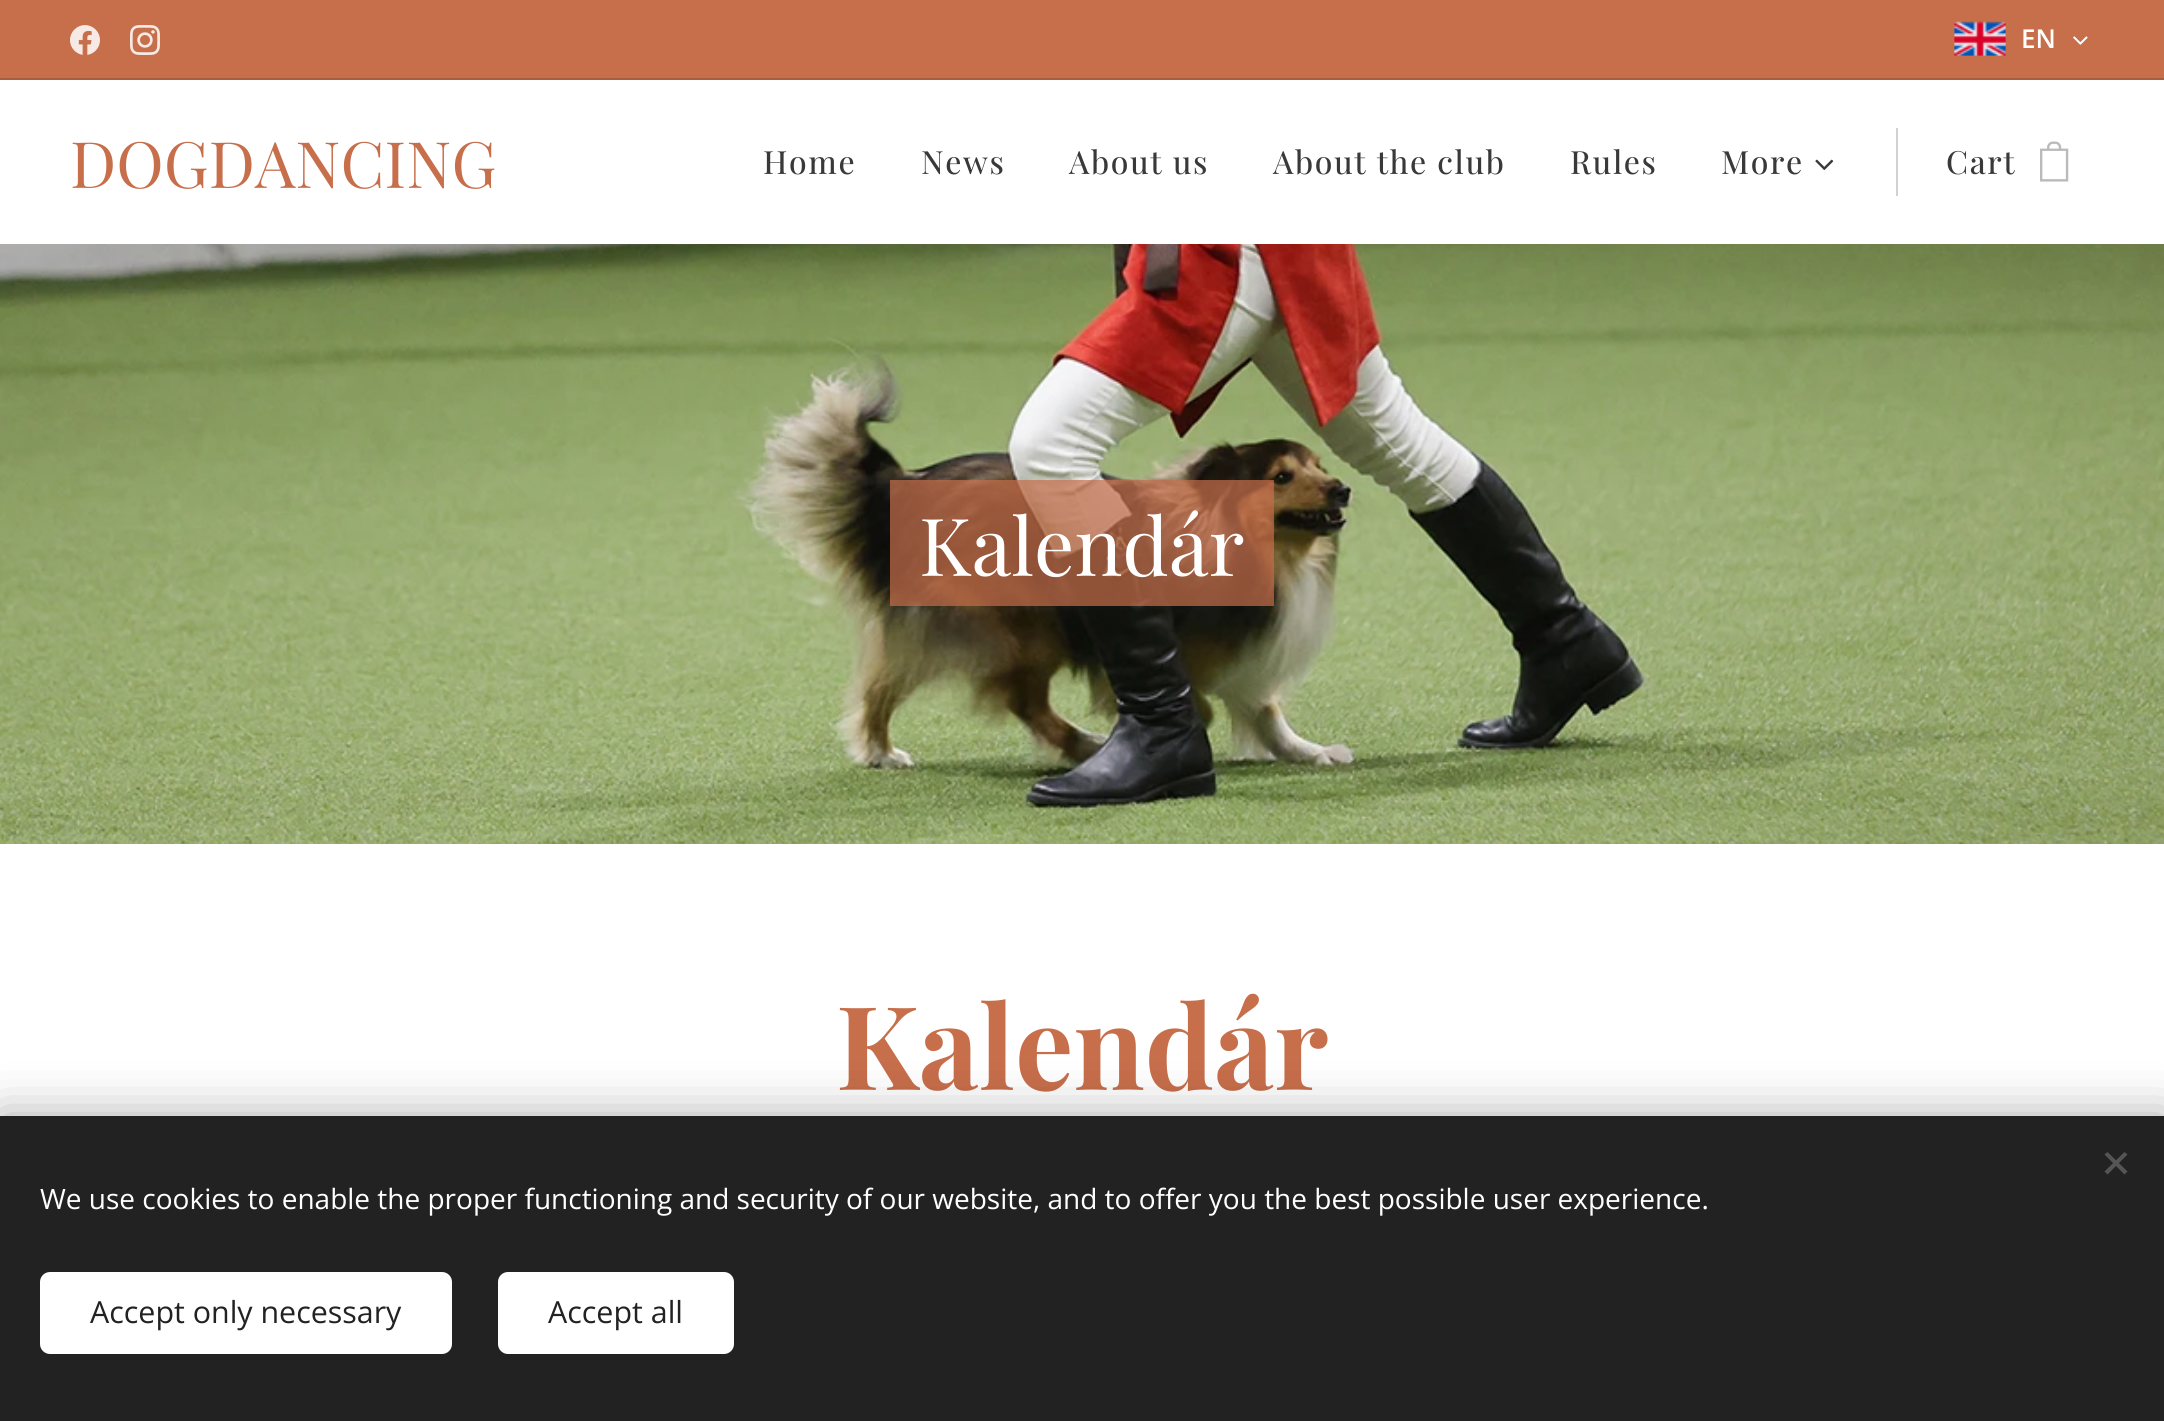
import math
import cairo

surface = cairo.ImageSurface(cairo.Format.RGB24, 2164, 1421)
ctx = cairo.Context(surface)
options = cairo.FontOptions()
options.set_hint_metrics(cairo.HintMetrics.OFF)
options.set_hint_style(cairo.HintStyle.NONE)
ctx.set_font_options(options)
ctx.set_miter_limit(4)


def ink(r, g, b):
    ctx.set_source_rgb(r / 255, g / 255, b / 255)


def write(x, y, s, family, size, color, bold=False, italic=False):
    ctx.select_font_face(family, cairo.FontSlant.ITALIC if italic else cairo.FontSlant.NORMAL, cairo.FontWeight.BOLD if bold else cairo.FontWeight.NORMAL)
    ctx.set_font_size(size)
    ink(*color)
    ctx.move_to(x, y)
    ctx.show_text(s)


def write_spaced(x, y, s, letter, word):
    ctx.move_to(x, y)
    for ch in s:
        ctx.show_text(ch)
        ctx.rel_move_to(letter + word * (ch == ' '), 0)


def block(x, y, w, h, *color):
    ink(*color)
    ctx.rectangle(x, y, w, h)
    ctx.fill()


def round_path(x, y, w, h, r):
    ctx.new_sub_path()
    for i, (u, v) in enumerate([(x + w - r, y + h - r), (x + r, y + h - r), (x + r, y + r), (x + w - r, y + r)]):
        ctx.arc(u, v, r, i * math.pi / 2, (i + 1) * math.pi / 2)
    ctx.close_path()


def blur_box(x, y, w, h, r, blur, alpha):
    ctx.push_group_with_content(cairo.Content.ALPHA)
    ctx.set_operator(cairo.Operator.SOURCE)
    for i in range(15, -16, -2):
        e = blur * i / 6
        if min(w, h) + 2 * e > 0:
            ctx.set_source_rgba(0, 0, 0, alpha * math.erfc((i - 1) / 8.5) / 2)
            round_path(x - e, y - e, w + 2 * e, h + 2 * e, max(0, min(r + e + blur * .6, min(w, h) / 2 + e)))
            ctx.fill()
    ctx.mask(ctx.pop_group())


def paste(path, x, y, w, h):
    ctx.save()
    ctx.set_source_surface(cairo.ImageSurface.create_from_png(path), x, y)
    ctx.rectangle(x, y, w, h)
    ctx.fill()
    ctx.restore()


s1 = dict(family="Open Sans SemiBold", size=26, color=(255, 255, 255))
s2 = dict(family="Playfair Display", size=64, color=(199, 110, 75))
s3 = dict(family="Playfair Display", size=80, color=(255, 255, 255))
s4 = dict(family="Playfair Display", size=116, color=(199, 110, 75), bold=True)
s5 = dict(family="Open Sans", size=28, color=(255, 255, 255))
s6 = dict(family="Open Sans", size=30.4, color=(34, 34, 34))

ink(255, 255, 255)
ctx.paint()
block(0, 0, 2164, 78, 199, 110, 75)
paste("pic1.png", 70, 25, 30, 30)
paste("pic2.png", 130, 25, 30, 30)
paste("pic3.png", 1954, 21, 52, 35)
write(2021, 48, "EN", **s1)
paste("pic4.png", 2073, 36, 15, 9)
block(0, 78, 2164, 2, 169, 94, 64)
write(70, 188, "DOGDANCING", **s2)
ctx.select_font_face("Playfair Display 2")
ctx.set_font_size(32)
ink(57, 57, 57)
write_spaced(763, 174, "Home", 1.6, 0)
write_spaced(921, 174, "News", 1.6, 0)
write_spaced(1069, 174, "About us", 1.6, 0)
write_spaced(1273, 174, "About the club", 1.6, 0)
write_spaced(1570, 174, "Rules", 1.6, 0)
write_spaced(1721, 174, "More", 1.6, 0)
paste("pic5.png", 1815, 159, 19, 11)
block(1896, 128, 2, 68, 209, 209, 209)
ink(57, 57, 57)
write_spaced(1946, 174, "Cart", 1.6, 0)
paste("pic6.png", 2040, 141, 29, 41)
paste("pic7.png", 0, 244, 2164, 600)
ctx.set_source_rgba(0.78, 0.431, 0.294, 0.7)
ctx.rectangle(920, 480, 324, 126)
ctx.fill()
write(919, 576, "Kalendár", **s3)
ctx.set_source_rgba(0.78, 0.431, 0.294, 0.7)
ctx.rectangle(890, 480, 30, 126)
ctx.fill()
ctx.rectangle(1244, 480, 30, 126)
ctx.fill()
write(836, 1090, "Kalendár", **s4)
ink(0, 0, 0)
blur_box(0, 1116, 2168, 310, 0, 25, 0.33)
block(0, 1116, 2164, 305, 34, 34, 34)
ink(85, 85, 85)
ctx.new_path()
ctx.move_to(2104.5, 1171.5)
ctx.line_to(2124.5, 1152)
ctx.line_to(2127.5, 1154.5)
ctx.line_to(2107.5, 1174.5)
ctx.close_path()
ctx.fill()
ctx.new_path()
ctx.move_to(2107.5, 1152)
ctx.line_to(2127.5, 1171.5)
ctx.line_to(2124.5, 1174.5)
ctx.line_to(2104.5, 1154.5)
ctx.close_path()
ctx.fill()
write(40, 1209, "We use cookies to enable the proper functioning and security of our website, and to offer you the best possible user experience.", **s5)
round_path(40, 1272, 412, 82, 10)
ctx.fill()
write(90, 1323, "Accept only necessary", **s6)
ink(255, 255, 255)
round_path(498, 1272, 236, 82, 10)
ctx.fill()
write(548, 1323, "Accept all", **s6)
surface.write_to_png("screenshot.png")
